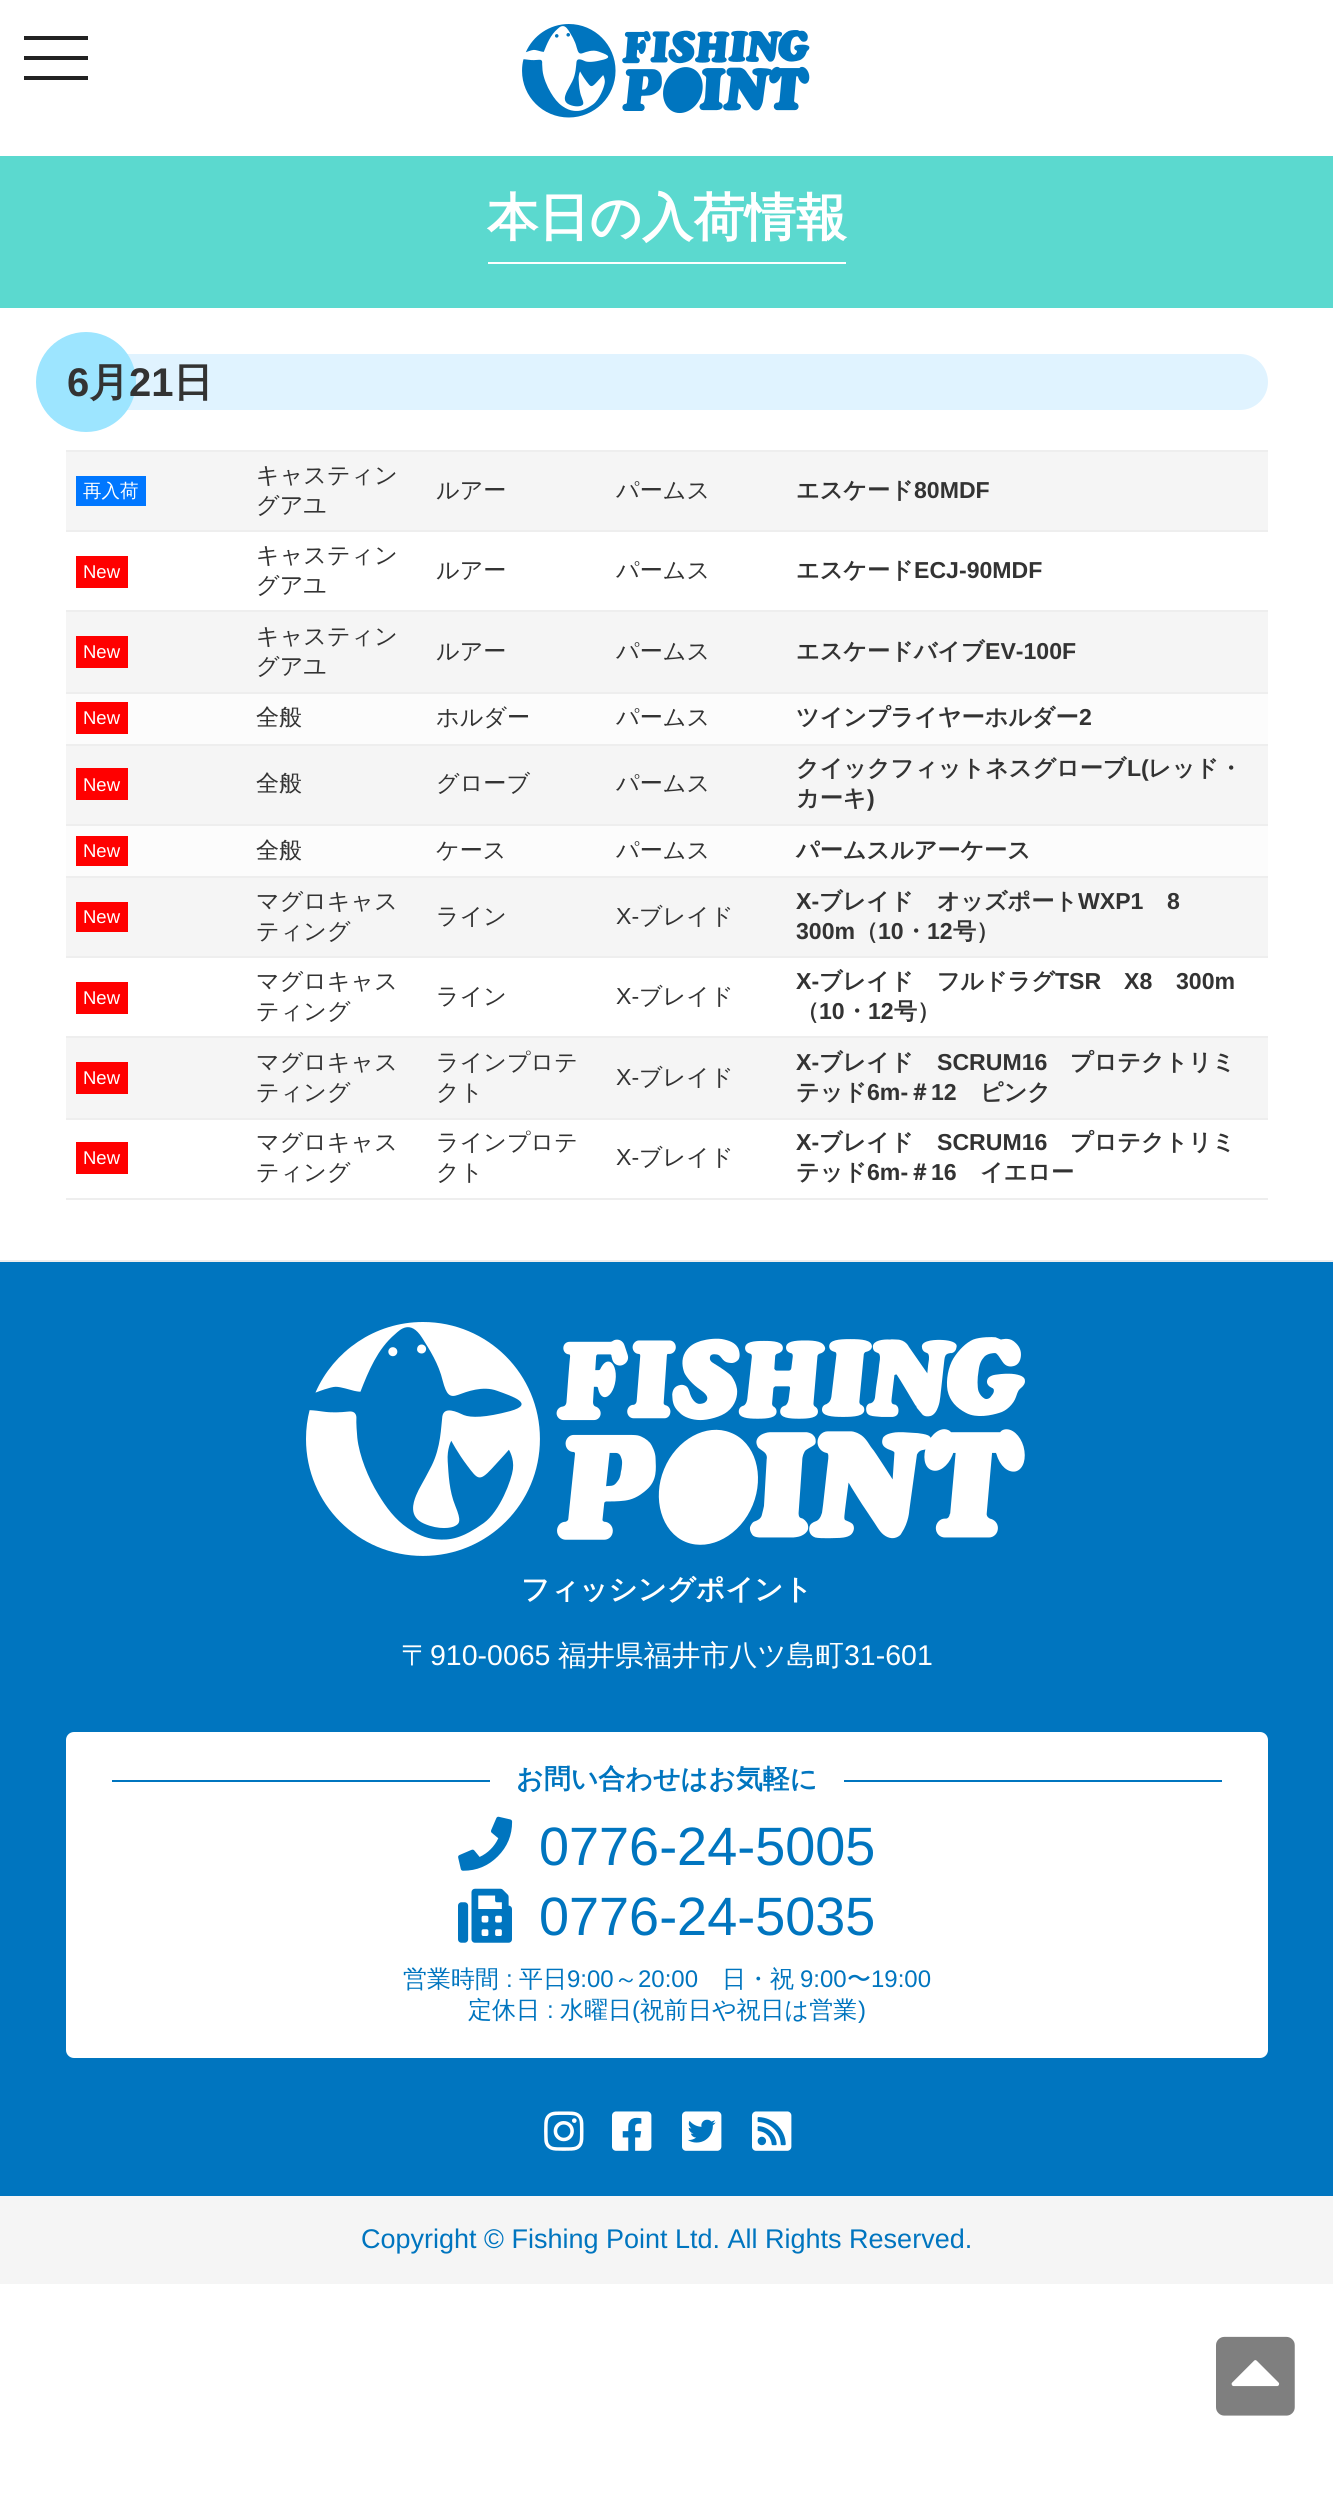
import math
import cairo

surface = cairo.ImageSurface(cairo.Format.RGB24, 1333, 2516)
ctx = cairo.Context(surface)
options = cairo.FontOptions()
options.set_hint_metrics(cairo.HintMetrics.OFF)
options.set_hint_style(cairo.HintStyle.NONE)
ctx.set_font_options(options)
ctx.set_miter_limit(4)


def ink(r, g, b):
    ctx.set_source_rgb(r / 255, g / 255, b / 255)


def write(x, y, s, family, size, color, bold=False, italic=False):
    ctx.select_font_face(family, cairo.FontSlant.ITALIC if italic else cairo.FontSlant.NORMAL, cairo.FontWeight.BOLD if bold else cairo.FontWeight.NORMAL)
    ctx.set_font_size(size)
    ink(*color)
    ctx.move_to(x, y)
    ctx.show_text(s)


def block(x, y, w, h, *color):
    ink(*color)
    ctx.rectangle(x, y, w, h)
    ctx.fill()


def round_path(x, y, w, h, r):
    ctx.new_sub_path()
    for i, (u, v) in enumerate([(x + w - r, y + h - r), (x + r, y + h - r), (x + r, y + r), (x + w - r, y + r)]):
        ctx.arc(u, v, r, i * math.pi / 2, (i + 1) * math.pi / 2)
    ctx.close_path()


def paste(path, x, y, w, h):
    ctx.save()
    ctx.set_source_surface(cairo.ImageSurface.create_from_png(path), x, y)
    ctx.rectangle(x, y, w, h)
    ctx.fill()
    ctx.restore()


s1 = dict(family="WenQuanYi Zen Hei", size=51.25, color=(255, 255, 255), bold=True)
s2 = dict(family="Liberation Sans", size=40, color=(51, 51, 51), bold=True)
s3 = dict(family="WenQuanYi Zen Hei", size=40, color=(51, 51, 51), bold=True)
s4 = dict(family="WenQuanYi Zen Hei Medium", size=18.5, color=(255, 255, 255))
s5 = dict(family="WenQuanYi Zen Hei Medium", size=23.1, color=(51, 51, 51))
s6 = dict(family="WenQuanYi Zen Hei", size=23.1, color=(51, 51, 51), bold=True)
s7 = dict(family="Liberation Sans", size=23.1, color=(51, 51, 51), bold=True)
s8 = dict(family="Liberation Sans", size=18.5, color=(255, 255, 255))
s9 = dict(family="Liberation Sans", size=23.1, color=(51, 51, 51))
s10 = dict(family="WenQuanYi Zen Hei", size=28.5, color=(255, 255, 255), bold=True)
s11 = dict(family="WenQuanYi Zen Hei Medium", size=28.5, color=(255, 255, 255))
s12 = dict(family="Liberation Sans", size=28.5, color=(255, 255, 255))
s13 = dict(family="WenQuanYi Zen Hei", size=27, color=(0, 117, 191), bold=True)
s14 = dict(family="Liberation Sans", size=54, color=(0, 117, 191))
s15 = dict(family="WenQuanYi Zen Hei Medium", size=24, color=(0, 117, 191))
s16 = dict(family="Liberation Sans", size=24, color=(0, 117, 191))
s17 = dict(family="Liberation Sans", size=27, color=(0, 117, 191))

ink(255, 255, 255)
ctx.paint()
block(24, 56, 64, 4, 34, 34, 34)
block(24, 36, 64, 4, 34, 34, 34)
block(24, 76, 64, 4, 34, 34, 34)
paste("pic1.png", 522, 24, 288, 94)
block(0, 156, 1333, 152, 91, 217, 207)
block(488, 262, 358, 2, 255, 255, 255)
write(487, 235, "本日の入荷情報", **s1)
ink(224, 243, 255)
round_path(66, 354, 1202, 56, 28)
ctx.fill()
ink(157, 229, 255)
ctx.arc(86, 382, 50, 0, 2 * math.pi)
ctx.fill()
write(67, 396, "6", **s2)
write(89, 396, "月", **s3)
write(129, 396, "21", **s2)
write(173, 396, "日", **s3)
block(66, 450, 1202, 2, 238, 238, 238)
block(66, 452, 1202, 78, 245, 245, 245)
block(66, 530, 1202, 2, 238, 238, 238)
block(76, 476, 70, 30, 0, 119, 255)
write(83, 497, "再入荷", **s4)
write(256, 483, "キャスティン", **s5)
write(256, 513, "グアユ", **s5)
write(436, 498, "ルアー", **s5)
write(616, 498, "パームス", **s5)
write(796, 498, "エスケード", **s6)
write(914, 498, "80MDF", **s7)
block(66, 610, 1202, 2, 238, 238, 238)
block(76, 556, 52, 32, 255, 0, 0)
write(83, 578, "New", **s8)
write(256, 563, "キャスティン", **s5)
write(256, 593, "グアユ", **s5)
write(436, 578, "ルアー", **s5)
write(616, 578, "パームス", **s5)
write(796, 578, "エスケード", **s6)
write(914, 578, "ECJ-90MDF", **s7)
block(66, 612, 1202, 80, 245, 245, 245)
block(66, 692, 1202, 2, 238, 238, 238)
block(76, 636, 52, 32, 255, 0, 0)
write(83, 658, "New", **s8)
write(256, 644, "キャスティン", **s5)
write(256, 674, "グアユ", **s5)
write(436, 659, "ルアー", **s5)
write(616, 659, "パームス", **s5)
write(796, 659, "エスケードバイブ", **s6)
write(985, 659, "EV-100F", **s7)
block(66, 694, 1202, 50, 252, 252, 252)
block(66, 744, 1202, 2, 238, 238, 238)
block(76, 702, 52, 32, 255, 0, 0)
write(83, 724, "New", **s8)
write(256, 725, "全般", **s5)
write(436, 725, "ホルダー", **s5)
write(616, 725, "パームス", **s5)
write(796, 725, "ツインプライヤーホルダー", **s6)
write(1079, 725, "2", **s7)
block(66, 746, 1202, 78, 245, 245, 245)
block(66, 824, 1202, 2, 238, 238, 238)
block(76, 768, 52, 32, 255, 0, 0)
write(83, 791, "New", **s8)
write(256, 791, "全般", **s5)
write(436, 791, "グローブ", **s5)
write(616, 791, "パームス", **s5)
write(796, 776, "クイックフィットネスグローブ", **s6)
write(1127, 776, "L(", **s7)
write(1148, 776, "レッド・", **s6)
write(796, 806, "カーキ", **s6)
write(867, 806, ")", **s7)
block(66, 826, 1202, 50, 252, 252, 252)
block(66, 876, 1202, 2, 238, 238, 238)
block(76, 836, 52, 30, 255, 0, 0)
write(83, 857, "New", **s8)
write(256, 858, "全般", **s5)
write(436, 858, "ケース", **s5)
write(616, 858, "パームス", **s5)
write(796, 858, "パームスルアーケース", **s6)
block(66, 878, 1202, 78, 245, 245, 245)
block(66, 956, 1202, 2, 238, 238, 238)
block(76, 902, 52, 30, 255, 0, 0)
write(83, 923, "New", **s8)
write(256, 909, "マグロキャス", **s5)
write(256, 939, "ティング", **s5)
write(436, 924, "ライン", **s5)
write(616, 924, "X-", **s9)
write(639, 924, "ブレイド", **s5)
write(796, 909, "X-", **s7)
write(819, 909, "ブレイド　オッズポート", **s6)
write(1078, 909, "WXP1", **s7)
write(1167, 909, "8", **s7)
write(796, 939, "300m", **s7)
write(855, 939, "（", **s6)
write(878, 939, "10", **s7)
write(904, 939, "・", **s6)
write(927, 939, "12", **s7)
write(953, 939, "号）", **s6)
block(66, 1036, 1202, 2, 238, 238, 238)
block(76, 982, 52, 32, 255, 0, 0)
write(83, 1004, "New", **s8)
write(256, 989, "マグロキャス", **s5)
write(256, 1019, "ティング", **s5)
write(436, 1004, "ライン", **s5)
write(616, 1004, "X-", **s9)
write(639, 1004, "ブレイド", **s5)
write(796, 989, "X-", **s7)
write(819, 989, "ブレイド　フルドラグ", **s6)
write(1055, 989, "TSR", **s7)
write(1124, 989, "X8", **s7)
write(1176, 989, "300m", **s7)
write(796, 1019, "（", **s6)
write(819, 1019, "10", **s7)
write(845, 1019, "・", **s6)
write(868, 1019, "12", **s7)
write(894, 1019, "号）", **s6)
block(66, 1038, 1202, 80, 245, 245, 245)
block(66, 1118, 1202, 2, 238, 238, 238)
block(76, 1062, 52, 32, 255, 0, 0)
write(83, 1084, "New", **s8)
write(256, 1070, "マグロキャス", **s5)
write(256, 1100, "ティング", **s5)
write(436, 1070, "ラインプロテ", **s5)
write(436, 1100, "クト", **s5)
write(616, 1085, "X-", **s9)
write(639, 1085, "ブレイド", **s5)
write(796, 1070, "X-", **s7)
write(819, 1070, "ブレイド", **s6)
write(937, 1070, "SCRUM16", **s7)
write(1070, 1070, "プロテクトリミ", **s6)
write(796, 1100, "テッド", **s6)
write(867, 1100, "6m-", **s7)
write(908, 1100, "＃", **s6)
write(931, 1100, "12", **s7)
write(980, 1100, "ピンク", **s6)
block(66, 1198, 1202, 2, 238, 238, 238)
block(76, 1142, 52, 32, 255, 0, 0)
write(83, 1164, "New", **s8)
write(256, 1150, "マグロキャス", **s5)
write(256, 1180, "ティング", **s5)
write(436, 1150, "ラインプロテ", **s5)
write(436, 1180, "クト", **s5)
write(616, 1165, "X-", **s9)
write(639, 1165, "ブレイド", **s5)
write(796, 1150, "X-", **s7)
write(819, 1150, "ブレイド", **s6)
write(937, 1150, "SCRUM16", **s7)
write(1070, 1150, "プロテクトリミ", **s6)
write(796, 1180, "テッド", **s6)
write(867, 1180, "6m-", **s7)
write(908, 1180, "＃", **s6)
write(931, 1180, "16", **s7)
write(980, 1180, "イエロー", **s6)
block(0, 1262, 1333, 934, 0, 117, 191)
block(0, 1260, 1333, 2, 238, 238, 238)
paste("pic2.png", 306, 1322, 719, 234)
write(521, 1599, "フィッシングポイント", **s10)
write(401, 1665, "〒", **s11)
write(430, 1665, "910-0065", **s12)
write(558, 1665, "福井県福井市八ツ島町", **s11)
write(844, 1665, "31-601", **s12)
round_path(66, 1732, 1202, 326, 8)
ctx.fill()
block(112, 1780, 378, 2, 0, 117, 191)
write(516, 1788, "お問い合わせはお気軽に", **s13)
block(844, 1780, 378, 2, 0, 117, 191)
paste("pic3.png", 458, 1816, 55, 55)
write(539, 1865, "0776-24-5005", **s14)
paste("pic4.png", 458, 1888, 54, 55)
write(539, 1935, "0776-24-5035", **s14)
write(403, 1987, "営業時間", **s15)
write(506, 1987, ":", **s16)
write(519, 1987, "平日", **s15)
write(567, 1987, "9:00", **s16)
write(614, 1987, "～", **s15)
write(638, 1987, "20:00", **s16)
write(722, 1987, "日・祝", **s15)
write(800, 1987, "9:00", **s16)
write(847, 1987, "〜", **s15)
write(871, 1987, "19:00", **s16)
write(468, 2018, "定休日", **s15)
write(547, 2018, ":", **s16)
write(560, 2018, "水曜日", **s15)
write(632, 2018, "(", **s16)
write(640, 2018, "祝前日や祝日は営業", **s15)
write(858, 2018, ")", **s16)
paste("pic5.png", 544, 2111, 40, 40)
paste("pic6.png", 612, 2111, 40, 40)
paste("pic7.png", 682, 2111, 40, 40)
paste("pic8.png", 752, 2111, 40, 40)
block(0, 2196, 1333, 88, 245, 245, 245)
write(361, 2248, "Copyright © Fishing Point Ltd. All Rights Reserved.", **s17)
paste("pic9.png", 1216, 2336, 79, 80)
surface.write_to_png("screenshot.png")
